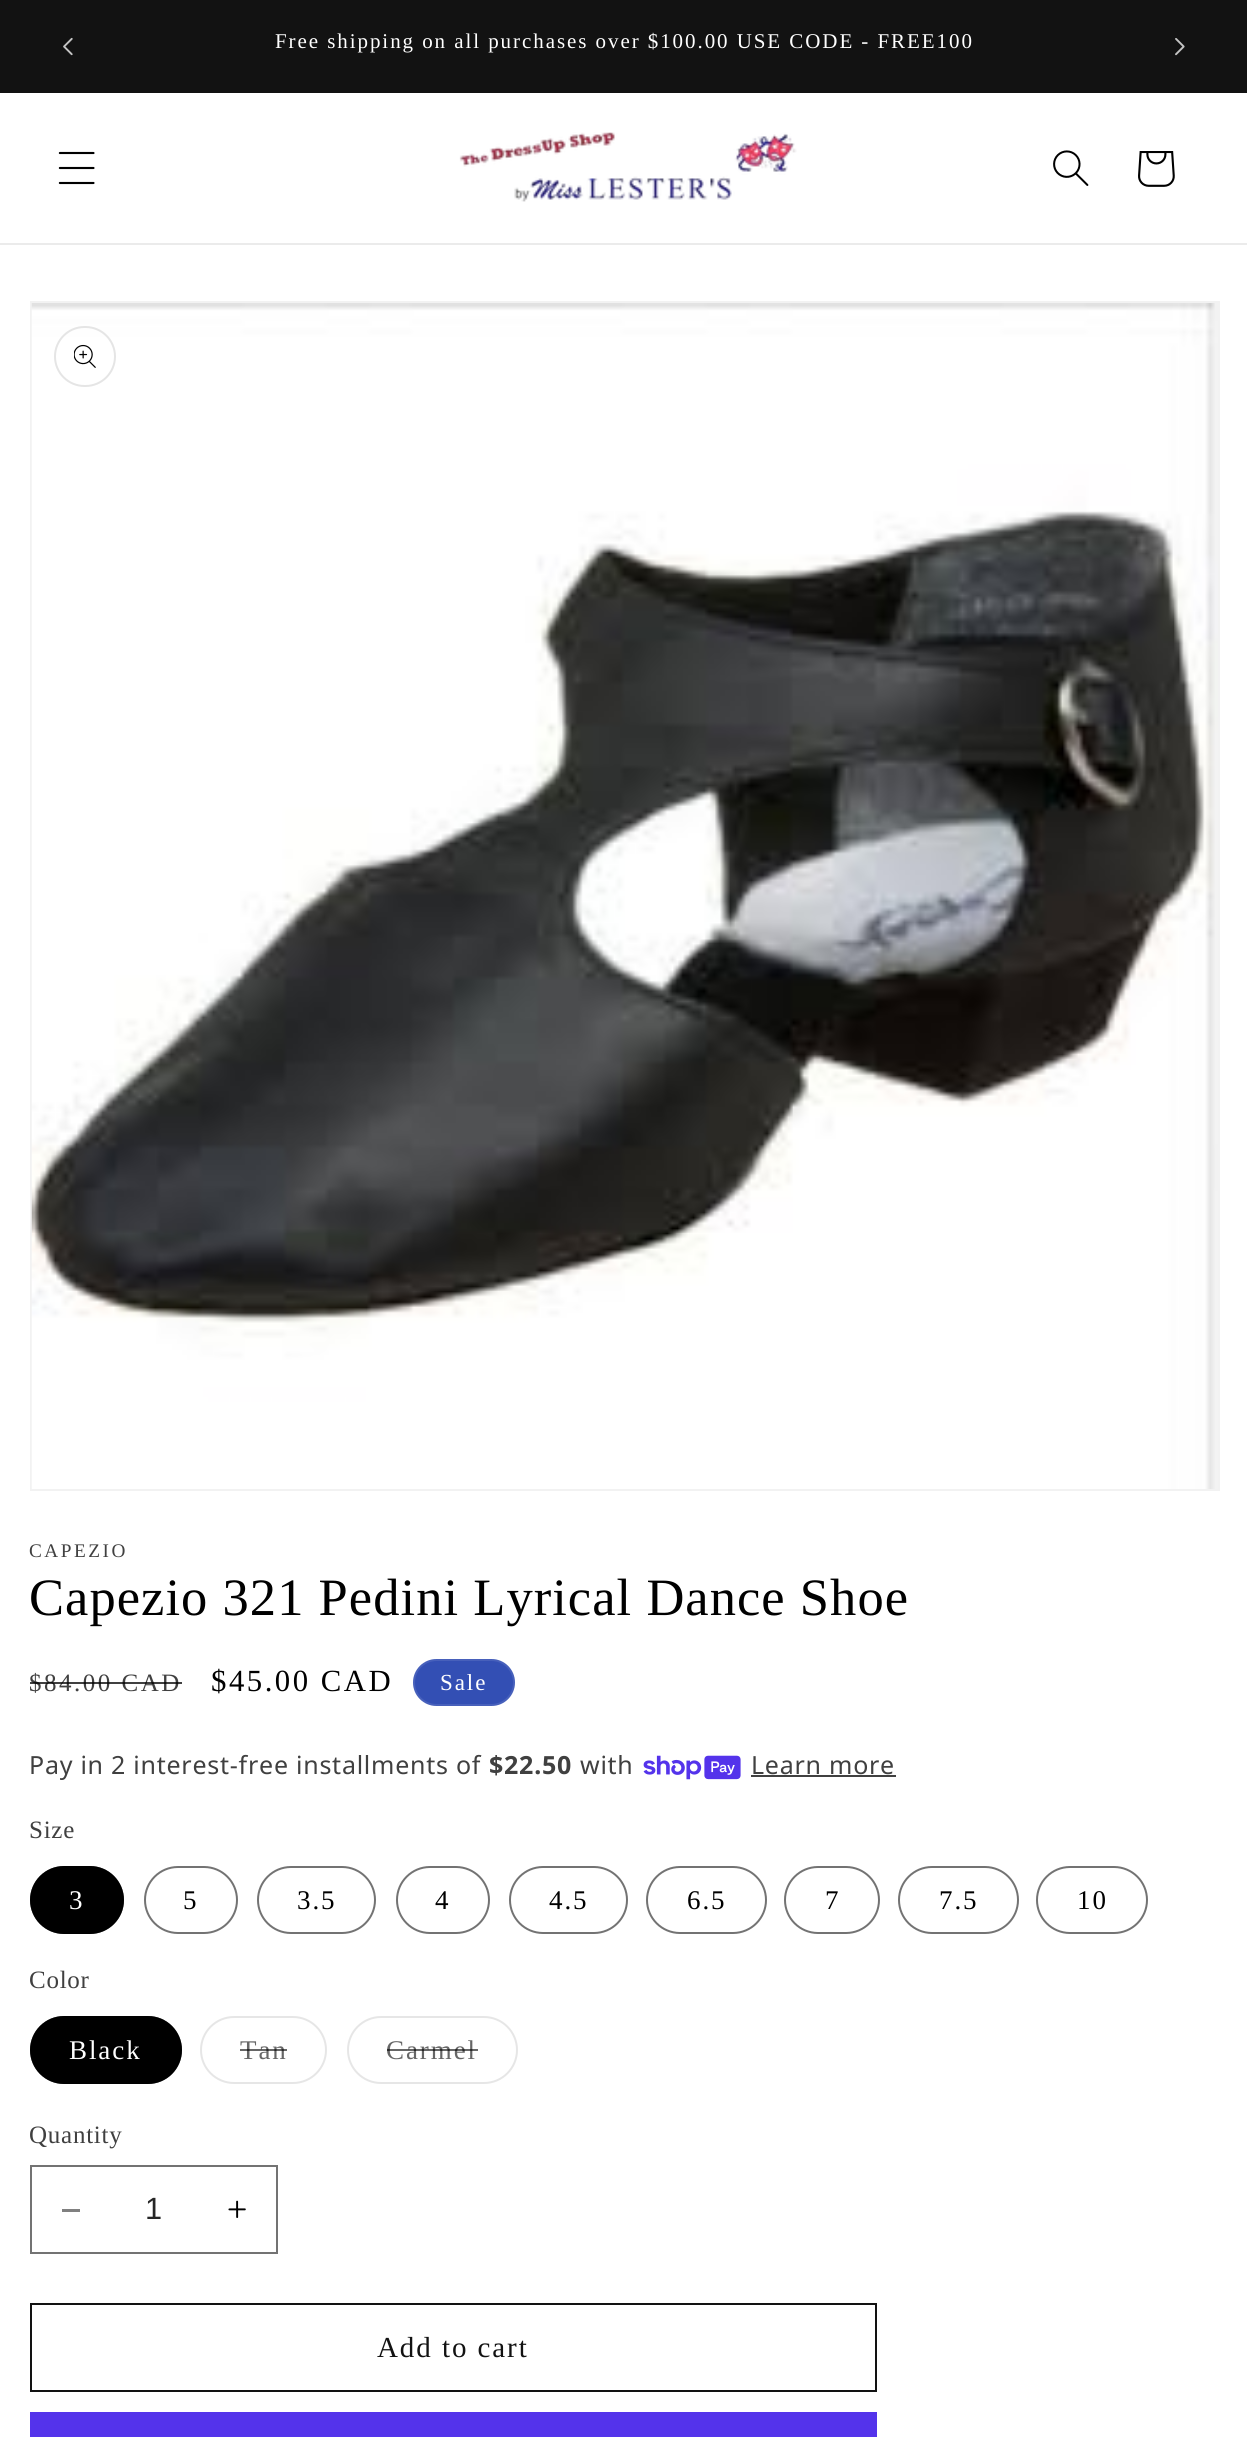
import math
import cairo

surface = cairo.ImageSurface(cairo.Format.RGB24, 1247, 2437)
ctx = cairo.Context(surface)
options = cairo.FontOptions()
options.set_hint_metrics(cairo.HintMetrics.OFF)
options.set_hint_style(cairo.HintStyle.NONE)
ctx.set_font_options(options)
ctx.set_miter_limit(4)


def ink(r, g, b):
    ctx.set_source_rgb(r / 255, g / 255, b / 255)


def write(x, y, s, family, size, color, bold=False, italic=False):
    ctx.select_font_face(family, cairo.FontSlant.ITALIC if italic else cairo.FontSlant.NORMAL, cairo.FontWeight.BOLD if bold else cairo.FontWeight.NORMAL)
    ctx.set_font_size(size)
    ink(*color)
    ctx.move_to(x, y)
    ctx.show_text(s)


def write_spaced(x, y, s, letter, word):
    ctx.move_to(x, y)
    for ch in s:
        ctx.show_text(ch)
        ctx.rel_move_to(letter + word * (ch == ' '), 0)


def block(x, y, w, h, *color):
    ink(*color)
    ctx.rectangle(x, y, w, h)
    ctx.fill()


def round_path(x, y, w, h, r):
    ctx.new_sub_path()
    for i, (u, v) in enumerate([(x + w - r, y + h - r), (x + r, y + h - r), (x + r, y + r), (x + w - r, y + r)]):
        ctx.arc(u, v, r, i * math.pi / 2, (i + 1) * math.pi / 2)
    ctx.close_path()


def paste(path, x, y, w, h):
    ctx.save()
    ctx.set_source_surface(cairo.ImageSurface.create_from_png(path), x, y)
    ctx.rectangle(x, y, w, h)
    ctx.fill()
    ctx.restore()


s1 = dict(family="Liberation Sans", size=30.75, color=(38, 38, 38))

ink(255, 255, 255)
ctx.paint()
block(0, 0, 1247, 93, 18, 18, 18)
paste("pic1.png", 63, 37, 10, 19)
ctx.select_font_face("Liberation Serif")
ctx.set_font_size(21)
ink(255, 255, 255)
write_spaced(275, 48, "Free shipping on all purchases over $100.00 USE CODE - FREE100", 1.93, 0)
paste("pic2.png", 1175, 38, 10, 18)
block(0, 243, 1247, 2, 235, 235, 235)
paste("pic3.png", 58, 151, 37, 34)
paste("pic4.png", 459, 132, 338, 70)
paste("pic5.png", 1053, 150, 36, 36)
paste("pic6.png", 1138, 151, 37, 36)
ctx.rectangle(31, 302, 1188, 1188)
ink(242, 242, 242)
ctx.stroke()
paste("pic7.png", 31, 303, 1187, 1186)
round_path(55, 327, 60, 59, 29.5)
ink(229, 229, 229)
ctx.stroke()
paste("pic8.png", 74, 344, 22, 24)
ctx.set_font_size(19.25)
ink(64, 64, 64)
write_spaced(29, 1557, "CAPEZIO", 2.5, 0)
ctx.set_font_size(52.5)
ink(0, 0, 0)
write_spaced(29, 1615, "Capezio 321 Pedini Lyrical Dance Shoe", 1.05, 0)
ctx.set_font_size(25)
ink(64, 64, 64)
write_spaced(29, 1691, "$84.00 CAD", 2.5, 0)
ctx.set_source_rgba(0, 0, 0, 0.75)
ctx.rectangle(30, 1682, 152, 2)
ctx.fill()
ctx.set_font_size(30.75)
ink(0, 0, 0)
write_spaced(211, 1691, "$45.00 CAD", 2.5, 0)
ink(51, 79, 180)
round_path(413, 1659, 102, 47, 23.5)
ctx.fill()
round_path(414, 1660, 100, 45, 22.5)
ctx.set_source_rgba(1, 1, 1, 0.1)
ctx.stroke()
ctx.set_font_size(23)
ink(255, 255, 255)
write_spaced(440, 1690, "Sale", 1.93, 0)
ctx.select_font_face("Noto Sans")
ctx.set_font_size(25)
ink(64, 64, 64)
write_spaced(29, 1774, "Pay in 2 interest-free installments of", 0.75, 0)
ctx.select_font_face("Noto Sans", cairo.FontSlant.NORMAL, cairo.FontWeight.BOLD)
write_spaced(489, 1774, "$22.50", 0.75, 0)
ctx.select_font_face("Noto Sans")
write_spaced(580, 1774, "with", 0.75, 0)
paste("pic9.png", 643, 1755, 98, 25)
write_spaced(751, 1774, "Learn more", 0.75, 0)
block(751, 1775, 145, 2, 64, 64, 64)
ctx.select_font_face("Liberation Serif")
write_spaced(29, 1838, "Size", 0.75, 0)
ink(0, 0, 0)
round_path(30, 1866, 94, 68, 34)
ctx.fill()
round_path(31, 1867, 92, 66, 33)
ctx.set_source_rgba(0, 0, 0, 0.55)
ctx.stroke()
ctx.set_font_size(27)
ink(255, 255, 255)
write_spaced(69, 1909, "3", 1.93, 0)
round_path(145, 1867, 92, 66, 33)
ink(115, 115, 115)
ctx.stroke()
ink(0, 0, 0)
write_spaced(183, 1909, "5", 1.93, 0)
round_path(258, 1867, 117, 66, 33)
ink(115, 115, 115)
ctx.stroke()
ink(0, 0, 0)
write_spaced(297, 1909, "3.5", 1.93, 0)
round_path(397, 1867, 92, 66, 33)
ink(115, 115, 115)
ctx.stroke()
ink(0, 0, 0)
write_spaced(435, 1909, "4", 1.93, 0)
round_path(510, 1867, 117, 66, 33)
ink(115, 115, 115)
ctx.stroke()
ink(0, 0, 0)
write_spaced(549, 1909, "4.5", 1.93, 0)
round_path(647, 1867, 119, 66, 33)
ink(115, 115, 115)
ctx.stroke()
ink(0, 0, 0)
write_spaced(687, 1909, "6.5", 1.93, 0)
round_path(785, 1867, 94, 66, 33)
ink(115, 115, 115)
ctx.stroke()
ink(0, 0, 0)
write_spaced(825, 1909, "7", 1.93, 0)
round_path(899, 1867, 119, 66, 33)
ink(115, 115, 115)
ctx.stroke()
ink(0, 0, 0)
write_spaced(939, 1909, "7.5", 1.93, 0)
round_path(1037, 1867, 110, 66, 33)
ink(115, 115, 115)
ctx.stroke()
ink(0, 0, 0)
write_spaced(1077, 1909, "10", 1.93, 0)
ctx.set_font_size(25)
ink(64, 64, 64)
write_spaced(29, 1988, "Color", 0.75, 0)
ink(0, 0, 0)
round_path(30, 2016, 152, 68, 34)
ctx.fill()
round_path(31, 2017, 150, 66, 33)
ctx.set_source_rgba(0, 0, 0, 0.55)
ctx.stroke()
ctx.set_font_size(27)
ink(255, 255, 255)
write_spaced(69, 2059, "Black", 1.93, 0)
round_path(201, 2017, 125, 66, 33)
ink(230, 230, 230)
ctx.stroke()
ink(102, 102, 102)
write_spaced(240, 2059, "Tan", 1.93, 0)
ctx.set_source_rgba(0, 0, 0, 0.6)
ctx.rectangle(240, 2049, 47, 2)
ctx.fill()
round_path(348, 2017, 169, 66, 33)
ink(230, 230, 230)
ctx.stroke()
ink(102, 102, 102)
write_spaced(386, 2059, "Carmel", 1.93, 0)
ctx.set_source_rgba(0, 0, 0, 0.6)
ctx.rectangle(387, 2049, 91, 2)
ctx.fill()
ctx.set_font_size(25)
ink(64, 64, 64)
write_spaced(29, 2143, "Quantity", 0.75, 0)
block(62, 2209, 18, 3, 128, 128, 128)
paste("pic10.png", 228, 2200, 18, 18)
ctx.rectangle(31, 2166, 246, 87)
ink(115, 115, 115)
ctx.stroke()
write(145, 2219, "1", **s1)
ctx.rectangle(31, 2304, 845, 87)
ink(18, 18, 18)
ctx.stroke()
ctx.select_font_face("Liberation Serif")
ctx.set_font_size(29)
write_spaced(377, 2357, "Add to cart", 1.93, 0)
block(30, 2412, 847, 25, 84, 51, 235)
surface.write_to_png("screenshot.png")
